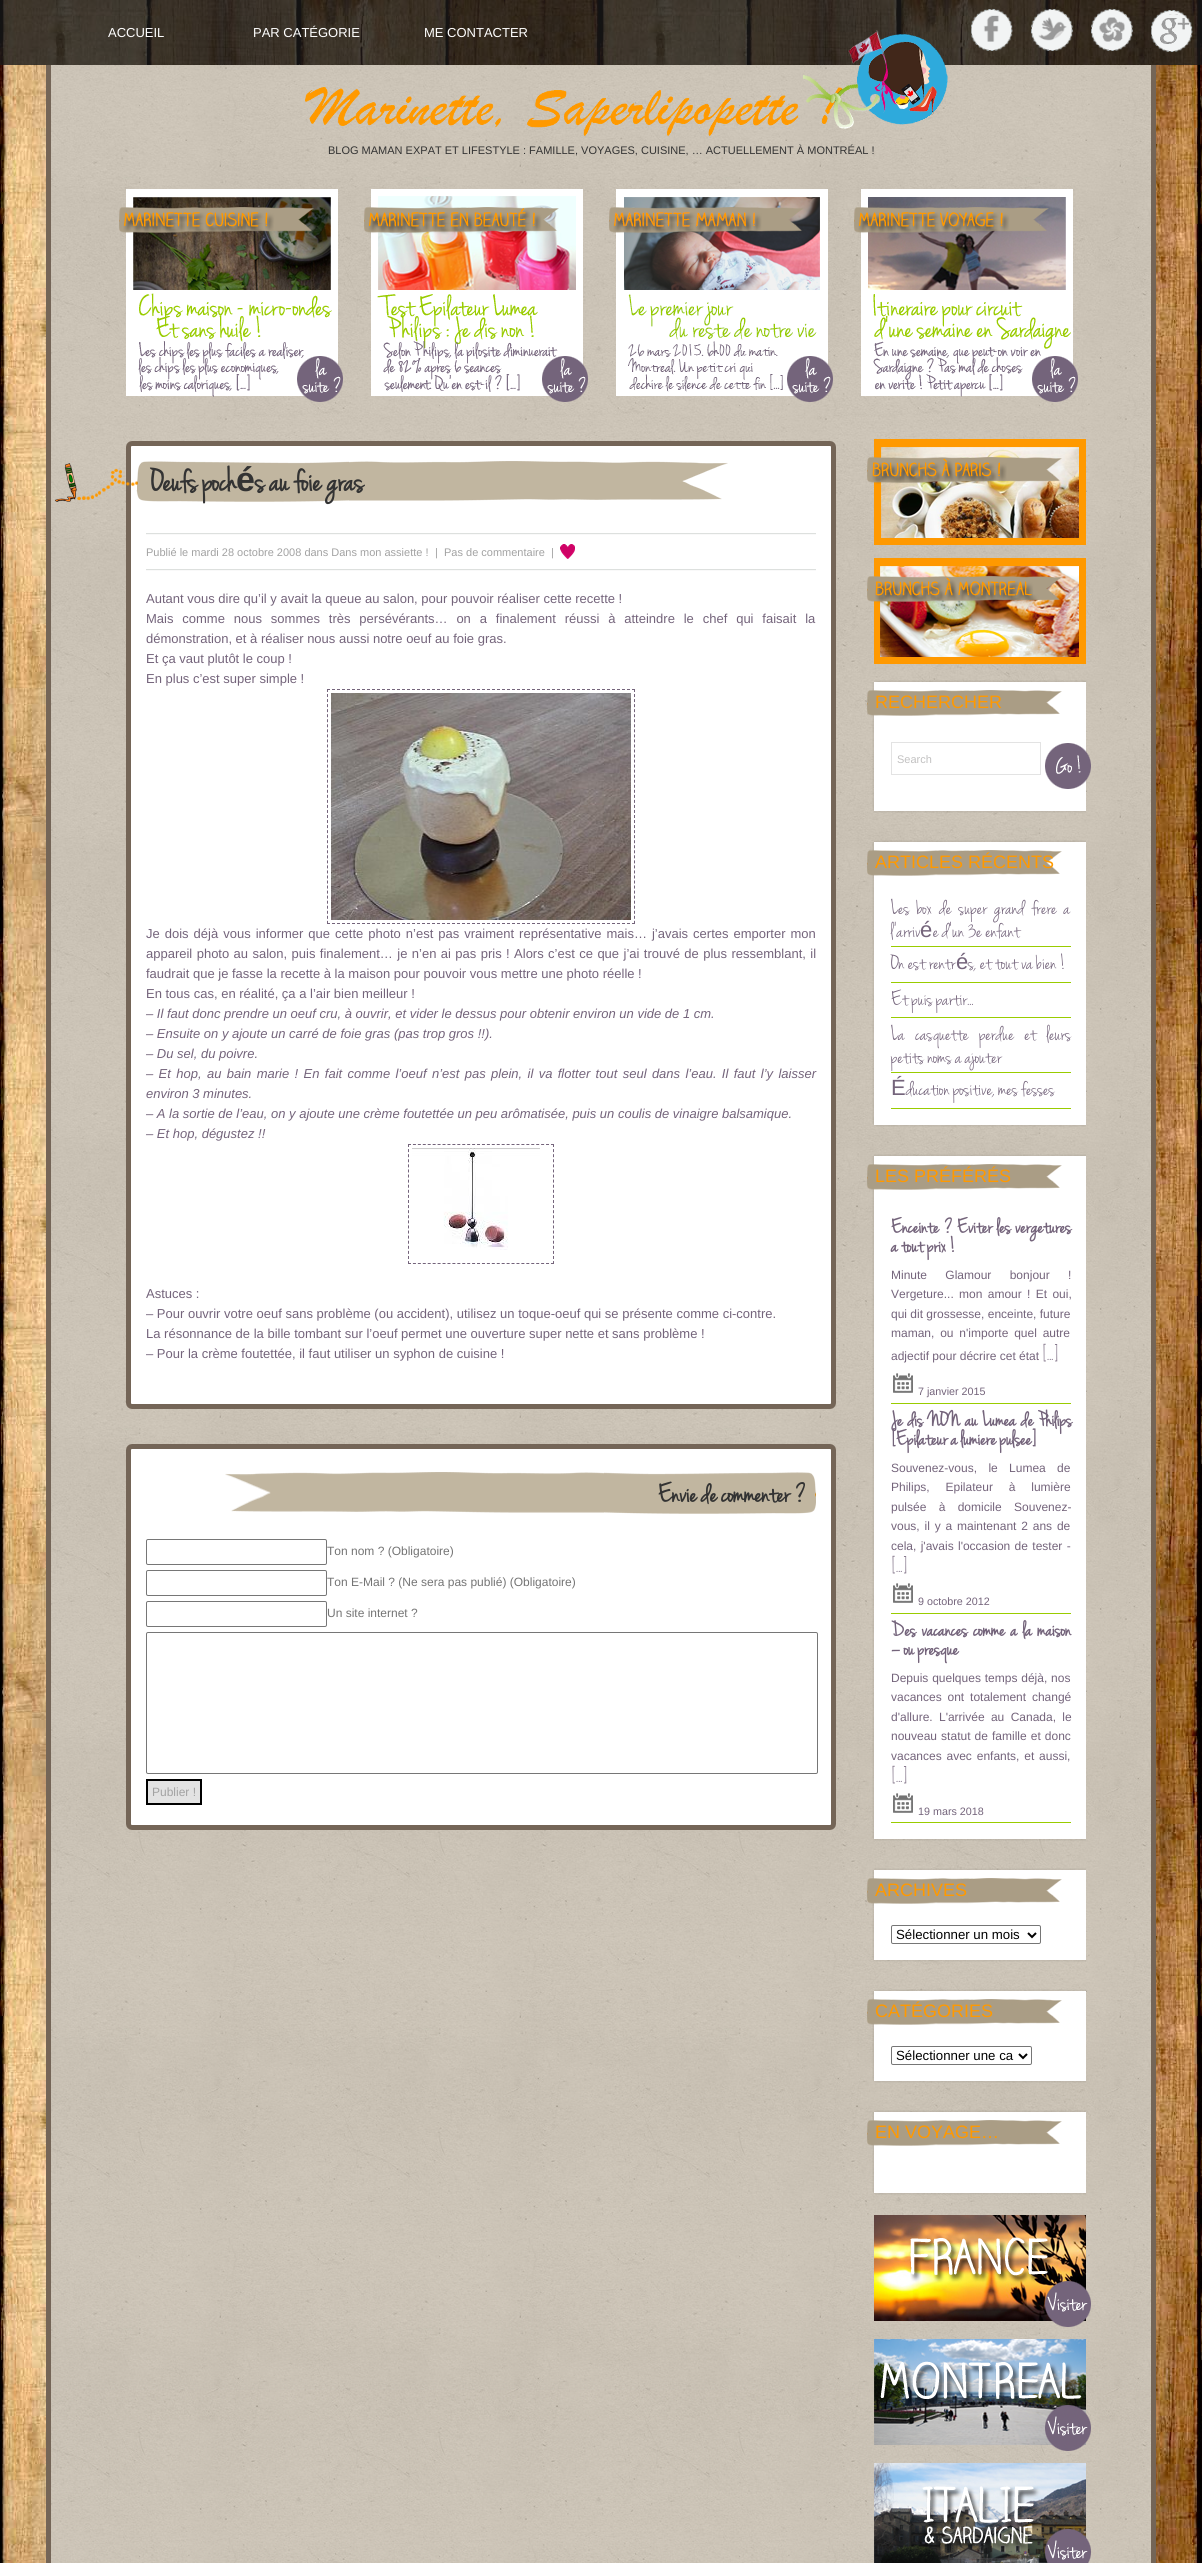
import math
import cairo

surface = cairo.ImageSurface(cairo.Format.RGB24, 1202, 2563)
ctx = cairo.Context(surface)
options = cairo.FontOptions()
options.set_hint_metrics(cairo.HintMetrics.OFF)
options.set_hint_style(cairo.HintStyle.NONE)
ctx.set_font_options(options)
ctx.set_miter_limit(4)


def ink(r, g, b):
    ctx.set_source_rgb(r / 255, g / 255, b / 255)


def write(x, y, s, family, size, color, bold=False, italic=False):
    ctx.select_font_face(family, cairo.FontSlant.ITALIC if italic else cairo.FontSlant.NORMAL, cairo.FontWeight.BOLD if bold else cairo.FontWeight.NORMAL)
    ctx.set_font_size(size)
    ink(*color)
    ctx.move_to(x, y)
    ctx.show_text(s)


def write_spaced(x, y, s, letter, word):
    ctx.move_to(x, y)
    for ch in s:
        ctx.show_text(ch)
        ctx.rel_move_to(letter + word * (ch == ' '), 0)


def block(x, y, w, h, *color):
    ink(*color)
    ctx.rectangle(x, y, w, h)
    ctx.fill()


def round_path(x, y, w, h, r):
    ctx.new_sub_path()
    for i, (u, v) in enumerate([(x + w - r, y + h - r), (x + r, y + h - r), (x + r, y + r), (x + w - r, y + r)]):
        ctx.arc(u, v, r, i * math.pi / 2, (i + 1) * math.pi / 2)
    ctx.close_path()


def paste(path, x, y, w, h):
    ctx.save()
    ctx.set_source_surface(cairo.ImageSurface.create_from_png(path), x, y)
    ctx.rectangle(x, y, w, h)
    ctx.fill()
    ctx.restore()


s1 = dict(family="Liberation Sans", size=13, color=(255, 255, 255))
s2 = dict(family="Liberation Sans", size=11, color=(51, 51, 51))
s3 = dict(family="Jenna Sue", size=34, color=(51, 51, 51), bold=True)
s4 = dict(family="Liberation Sans", size=34, color=(51, 51, 51), bold=True)
s5 = dict(family="Liberation Sans", size=11, color=(162, 162, 162))
s6 = dict(family="Liberation Sans", size=13, color=(116, 100, 123))
s7 = dict(family="Liberation Sans", size=13, color=(116, 100, 123), italic=True)
s8 = dict(family="Jenna Sue", size=28, color=(51, 51, 51), bold=True)
s9 = dict(family="Liberation Sans", size=12, color=(116, 116, 116))
s10 = dict(family="Liberation Sans", size=12, color=(162, 162, 162))
s11 = dict(family="Liberation Sans", size=18, color=(255, 153, 0))
s12 = dict(family="Liberation Sans", size=11, color=(194, 193, 193))
s13 = dict(family="Jenna Sue", size=22, color=(116, 100, 123))
s14 = dict(family="Liberation Sans", size=22, color=(116, 100, 123))
s15 = dict(family="Jenna Sue", size=22, color=(116, 100, 123), bold=True)
s16 = dict(family="Liberation Sans", size=12, color=(116, 100, 123))
s17 = dict(family="Liberation Sans", size=10.75, color=(116, 100, 123))
s18 = dict(family="Liberation Sans", size=13.25, color=(0, 0, 0))

ink(255, 255, 255)
ctx.paint()
paste("pic1.png", 0, 0, 1202, 2563)
ctx.set_source_rgba(0.094, 0.094, 0.094, 0.8)
ctx.rectangle(0, 0, 1202, 65)
ctx.fill()
write(108, 37, "ACCUEIL", **s1)
write(253, 37, "PAR CATÉGORIE", **s1)
write(424, 37, "ME CONTACTER", **s1)
paste("pic2.png", 971, 9, 42, 42)
paste("pic3.png", 1031, 9, 42, 42)
paste("pic4.png", 1091, 9, 42, 42)
paste("pic5.png", 51, 65, 1100, 351)
block(1151, 65, 5, 2498, 116, 101, 87)
block(46, 65, 5, 2498, 116, 101, 87)
paste("pic6.png", 1151, 10, 42, 42)
paste("pic7.png", 305, 87, 494, 49)
paste("pic8.png", 803, 30, 145, 99)
write(328, 154, "BLOG MAMAN EXPAT ET LIFESTYLE : FAMILLE, VOYAGES, CUISINE, … ACTUELLEMENT À MONTRÉAL !", **s2)
paste("pic9.png", 119, 189, 219, 101)
paste("pic10.png", 364, 189, 219, 101)
paste("pic11.png", 609, 189, 219, 101)
paste("pic12.png", 854, 189, 219, 101)
paste("pic13.png", 126, 290, 217, 112)
paste("pic14.png", 371, 290, 217, 112)
paste("pic15.png", 616, 290, 217, 112)
paste("pic16.png", 861, 290, 217, 112)
paste("pic17.png", 51, 416, 1100, 2147)
ink(255, 255, 255)
round_path(128.5, 443.5, 705, 963, 3.5)
ctx.fill_preserve()
ink(116, 101, 87)
ctx.set_line_width(5)
ctx.stroke()
paste("pic18.png", 55, 461, 673, 41)
write(151, 491, "Oeufs poch", **s3)
write(236, 491, "é", **s4)
write(255, 491, "s au foie gras", **s3)
paste("pic19.png", 146, 533, 670, 2)
write(146, 556, "Publié le mardi 28 octobre 2008 dans Dans mon assiette !", **s5)
write(435, 556, "|", **s5)
write(444, 556, "Pas de commentaire", **s5)
write(551, 556, "|", **s5)
paste("pic20.png", 560, 544, 15, 15)
paste("pic19.png", 146, 569, 670, 2)
write(146, 603, "Autant vous dire qu’il y avait la queue au salon, pour pouvoir réaliser cette recette !", **s6)
write_spaced(146, 623, "Mais comme nous sommes très persévérants… on a finalement réussi à atteindre le chef qui faisait la", 0, 5.25)
write(146, 643, "démonstration, et à réaliser nous aussi notre oeuf au foie gras.", **s6)
write(146, 663, "Et ça vaut plutôt le coup !", **s6)
write(146, 683, "En plus c’est super simple !", **s6)
ctx.new_path()
ctx.move_to(327, 689.5)
ctx.line_to(635, 689.5)
ctx.set_line_width(1)
ctx.set_dash([3, 2])
ctx.stroke()
ctx.new_path()
ctx.move_to(634.5, 689)
ctx.line_to(634.5, 924)
ctx.set_dash([3, 2.04])
ctx.stroke()
ctx.new_path()
ctx.move_to(327, 923.5)
ctx.line_to(635, 923.5)
ctx.set_dash([3, 2])
ctx.stroke()
ctx.new_path()
ctx.move_to(327.5, 689)
ctx.line_to(327.5, 924)
ctx.set_dash([3, 2.04])
ctx.stroke()
paste("pic21.png", 331, 693, 300, 227)
write_spaced(146, 938, "Je dois déjà vous informer que cette photo n’est pas vraiment représentative mais… j’avais certes emporter mon", 0, 1.4)
write_spaced(146, 958, "appareil photo au salon, puis finalement… je n’en ai pas pris ! Alors c’est ce que j’ai trouvé de plus ressemblant, il", 0, 0.8)
write(146, 978, "faudrait que je fasse la recette à la maison pour pouvoir vous mettre une photo réelle !", **s6)
write(146, 998, "En tous cas, en réalité, ça a l’air bien meilleur !", **s6)
write(146, 1018, "– Il faut donc prendre un oeuf cru, à ouvrir, et vider le dessus pour obtenir environ un vide de 1 cm.", **s7)
write(146, 1038, "– Ensuite on y ajoute un carré de foie gras (pas trop gros !!).", **s7)
write(146, 1058, "– Du sel, du poivre.", **s7)
write_spaced(146, 1078, "– Et hop, au bain marie ! En fait comme l’oeuf n’est pas plein, il va flotter tout seul dans l’eau. Il faut l’y laisser", 0, 1.75)
write(146, 1098, "environ 3 minutes.", **s7)
write(146, 1118, "– A la sortie de l’eau, on y ajoute une crème foutettée un peu arômatisée, puis un coulis de vinaigre balsamique.", **s7)
write(146, 1138, "– Et hop, dégustez !!", **s7)
ctx.new_path()
ctx.move_to(408, 1144.5)
ctx.line_to(554, 1144.5)
ctx.set_dash([3, 1.93])
ctx.stroke()
ctx.new_path()
ctx.move_to(553.5, 1144)
ctx.line_to(553.5, 1264)
ctx.set_dash([3, 2.09])
ctx.stroke()
ctx.new_path()
ctx.move_to(408, 1263.5)
ctx.line_to(554, 1263.5)
ctx.set_dash([3, 1.93])
ctx.stroke()
ctx.new_path()
ctx.move_to(408.5, 1144)
ctx.line_to(408.5, 1264)
ctx.set_dash([3, 2.09])
ctx.stroke()
paste("pic22.png", 412, 1148, 128, 102)
write(146, 1298, "Astuces :", **s6)
write(146, 1318, "– Pour ouvrir votre oeuf sans problème (ou accident), utilisez un toque-oeuf qui se présente comme ci-contre.", **s6)
write(146, 1338, "La résonnance de la bille tombant sur l’oeuf permet une ouverture super nette et sans problème !", **s6)
write(146, 1358, "– Pour la crème foutettée, il faut utiliser un syphon de cuisine !", **s6)
ink(255, 255, 255)
round_path(128.5, 1446.5, 705, 381, 3.5)
ctx.fill_preserve()
ink(116, 101, 87)
ctx.set_line_width(5)
ctx.set_dash([])
ctx.stroke()
paste("pic23.png", 225, 1472, 591, 42)
write(658, 1502, "Envie de commenter ?", **s8)
round_path(146.5, 1539.5, 180, 25, 1.5)
ink(118, 118, 118)
ctx.set_line_width(1)
ctx.stroke()
write(327, 1555, "Ton nom ? (Obligatoire)", **s9)
round_path(146.5, 1570.5, 180, 25, 1.5)
ink(118, 118, 118)
ctx.stroke()
write(327, 1586, "Ton E-Mail ? (Ne sera pas publié) (Obligatoire)", **s9)
round_path(146.5, 1601.5, 180, 25, 1.5)
ink(118, 118, 118)
ctx.stroke()
write(327, 1617, "Un site internet ?", **s9)
round_path(146.5, 1632.5, 671, 141, 1.5)
ink(118, 118, 118)
ctx.stroke()
ink(227, 227, 227)
ctx.rectangle(147, 1780, 54, 24)
ctx.fill_preserve()
ink(0, 0, 0)
ctx.set_line_width(2)
ctx.stroke()
write(152, 1796, "Publier !", **s10)
paste("pic24.png", 867, 439, 219, 106)
paste("pic25.png", 867, 558, 219, 106)
paste("pic26.png", 874, 680, 212, 2)
paste("pic27.png", 872, 682, 214, 128)
paste("pic28.png", 867, 690, 195, 26)
write(875, 708, "RECHERCHER", **s11)
ctx.rectangle(891.5, 742.5, 149, 32)
ink(227, 227, 227)
ctx.set_line_width(1)
ctx.stroke()
write(897, 763, "Search", **s12)
paste("pic29.png", 1045, 743, 46, 46)
paste("pic30.png", 873, 810, 213, 3)
paste("pic31.png", 874, 840, 212, 2)
paste("pic32.png", 872, 842, 214, 282)
paste("pic33.png", 867, 850, 195, 26)
write(875, 868, "ARTICLES RÉCENTS", **s11)
block(891, 946, 180, 1, 153, 204, 0)
ctx.select_font_face("Jenna Sue")
ctx.set_font_size(22)
ink(116, 100, 123)
write_spaced(891, 914, "Les box de super grand frère à", 0, 3.5)
write(891, 937, "l’arriv", **s13)
write(920, 937, "é", **s14)
write(933, 937, "e d’un 3è enfant", **s13)
block(891, 982, 180, 1, 153, 204, 0)
write(891, 969, "On est rentr", **s13)
write(956, 969, "é", **s14)
write(968, 969, "s, et tout va bien !", **s13)
block(891, 1017, 180, 1, 153, 204, 0)
write(891, 1005, "Et puis partir…", **s13)
block(891, 1072, 180, 1, 153, 204, 0)
ink(116, 100, 123)
write_spaced(891, 1040, "La casquette perdue et leurs", 0, 7)
write(891, 1063, "petits noms à ajouter", **s13)
block(891, 1108, 180, 1, 153, 204, 0)
write(891, 1095, "É", **s14)
write(906, 1095, "ducation positive, mes fesses", **s13)
paste("pic34.png", 873, 1124, 213, 3)
paste("pic35.png", 874, 1154, 212, 2)
paste("pic36.png", 872, 1156, 214, 682)
paste("pic37.png", 867, 1164, 195, 26)
write(875, 1182, "LES PRÉFÉRÉS", **s11)
block(891, 1403, 180, 1, 153, 204, 0)
ctx.select_font_face("Jenna Sue", cairo.FontSlant.NORMAL, cairo.FontWeight.BOLD)
ctx.set_font_size(22)
ink(116, 100, 123)
write_spaced(891, 1233, "Enceinte ? Eviter les vergetures", 0, 1)
write(891, 1252, "à tout prix !", **s15)
ctx.select_font_face("Liberation Sans")
ctx.set_font_size(12)
write_spaced(891, 1279, "Minute Glamour bonjour !", 0, 15)
write_spaced(891, 1298, "Vergeture... mon amour ! Et oui,", 0, 2)
write(891, 1318, "qui dit grossesse, enceinte, future", **s16)
write_spaced(891, 1337, "maman, ou n'importe quel autre", 0, 2.5)
write(891, 1360, "adjectif pour décrire cet état", **s16)
write(1042, 1360, "[...]", **s13)
paste("pic38.png", 893, 1373, 20, 20)
write(918, 1395, "7 janvier 2015", **s17)
block(891, 1613, 180, 1, 153, 204, 0)
ctx.select_font_face("Jenna Sue", cairo.FontSlant.NORMAL, cairo.FontWeight.BOLD)
ctx.set_font_size(22)
ink(116, 100, 123)
write_spaced(891, 1426, "Je dis NON au Lumea de Philips", 0, 1.5)
write(891, 1445, "[Epilateur a lumière pulsee]", **s15)
ctx.select_font_face("Liberation Sans")
ctx.set_font_size(12)
write_spaced(891, 1472, "Souvenez-vous, le Lumea de", 0, 8)
write_spaced(891, 1491, "Philips, Epilateur à lumière", 0, 12.5)
write_spaced(891, 1511, "pulsée à domicile Souvenez-", 0, 9)
write_spaced(891, 1530, "vous, il y a maintenant 2 ans de", 0, 1.5)
write_spaced(891, 1550, "cela, j'avais l'occasion de tester -", 0, 1)
write(891, 1572, "[...]", **s13)
paste("pic38.png", 893, 1583, 20, 20)
write(918, 1605, "9 octobre 2012", **s17)
block(891, 1822, 180, 1, 153, 204, 0)
ctx.select_font_face("Jenna Sue", cairo.FontSlant.NORMAL, cairo.FontWeight.BOLD)
ctx.set_font_size(22)
ink(116, 100, 123)
write_spaced(891, 1636, "Des vacances comme à la maison", 0, 2.25)
write(891, 1655, "– ou presque", **s15)
ctx.select_font_face("Liberation Sans")
ctx.set_font_size(12)
write_spaced(891, 1682, "Depuis quelques temps déjà, nos", 0, 0.5)
write_spaced(891, 1701, "vacances ont totalement changé", 0, 2.5)
write_spaced(891, 1721, "d'allure. L'arrivée au Canada, le", 0, 3)
write_spaced(891, 1740, "nouveau statut de famille et donc", 0, 0.75)
write_spaced(891, 1760, "vacances avec enfants, et aussi,", 0, 1.5)
write(891, 1782, "[...]", **s13)
paste("pic38.png", 893, 1793, 20, 20)
write(918, 1815, "19 mars 2018", **s17)
paste("pic39.png", 873, 1838, 213, 3)
paste("pic40.png", 874, 1868, 212, 2)
paste("pic41.png", 872, 1870, 214, 89)
paste("pic42.png", 867, 1878, 195, 26)
write(875, 1896, "ARCHIVES", **s11)
round_path(891.5, 1925.5, 149, 18, 1.5)
ink(118, 118, 118)
ctx.stroke()
ctx.new_path()
ctx.move_to(1028, 1933)
ctx.line_to(1032, 1937)
ctx.line_to(1036, 1933)
ink(0, 0, 0)
ctx.set_line_width(2)
ctx.stroke()
write(896, 1939, "Sélectionner un mois", **s18)
paste("pic43.png", 873, 1959, 213, 3)
paste("pic44.png", 874, 1989, 212, 2)
paste("pic45.png", 872, 1991, 214, 89)
paste("pic46.png", 867, 1999, 195, 26)
write(875, 2017, "CATÉGORIES", **s11)
round_path(891.5, 2046.5, 140, 18, 1.5)
ink(118, 118, 118)
ctx.set_line_width(1)
ctx.stroke()
ctx.new_path()
ctx.move_to(1019, 2054)
ctx.line_to(1023, 2058)
ctx.line_to(1027, 2054)
ink(0, 0, 0)
ctx.set_line_width(2)
ctx.stroke()
write(896, 2060, "Sélectionner une ca", **s18)
paste("pic47.png", 873, 2080, 213, 3)
paste("pic48.png", 874, 2110, 212, 2)
paste("pic49.png", 872, 2112, 214, 80)
paste("pic50.png", 867, 2120, 195, 26)
write(875, 2138, "EN VOYAGE…", **s11)
paste("pic51.png", 873, 2192, 213, 3)
paste("pic52.png", 874, 2215, 217, 112)
paste("pic53.png", 874, 2339, 217, 112)
paste("pic54.png", 874, 2463, 217, 100)
surface.write_to_png("screenshot.png")
